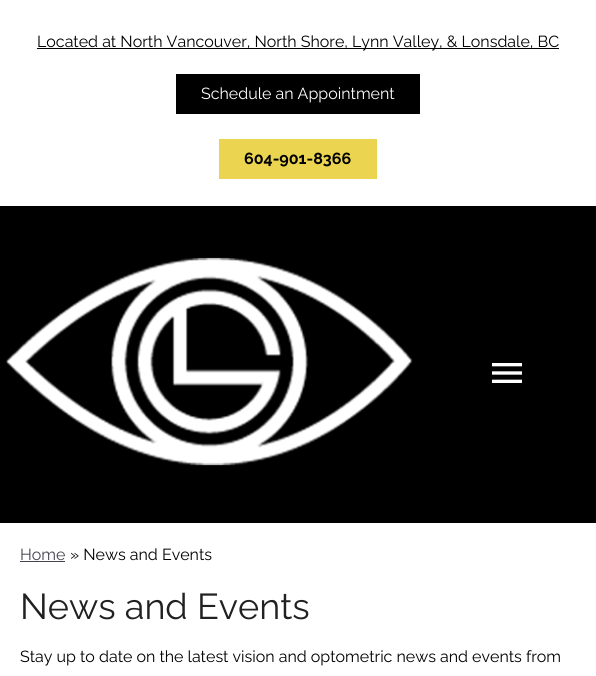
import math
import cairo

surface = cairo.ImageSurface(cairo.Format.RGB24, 596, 676)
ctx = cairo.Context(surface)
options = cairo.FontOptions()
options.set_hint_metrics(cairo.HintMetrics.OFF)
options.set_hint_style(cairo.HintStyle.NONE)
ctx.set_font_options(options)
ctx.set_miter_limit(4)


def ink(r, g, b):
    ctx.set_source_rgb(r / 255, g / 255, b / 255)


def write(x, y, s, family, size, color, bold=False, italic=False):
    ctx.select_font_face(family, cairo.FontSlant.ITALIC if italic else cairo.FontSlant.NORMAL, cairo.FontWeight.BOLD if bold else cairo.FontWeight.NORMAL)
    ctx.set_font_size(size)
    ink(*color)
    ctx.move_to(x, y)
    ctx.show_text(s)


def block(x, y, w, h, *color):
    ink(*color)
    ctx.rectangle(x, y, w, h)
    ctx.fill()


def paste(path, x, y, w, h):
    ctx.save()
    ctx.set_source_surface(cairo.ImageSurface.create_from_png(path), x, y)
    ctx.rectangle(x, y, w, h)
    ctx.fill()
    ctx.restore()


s1 = dict(family="Raleway", size=16, color=(0, 0, 0))
s2 = dict(family="Raleway", size=16, color=(255, 255, 255))
s3 = dict(family="Raleway", size=16, color=(0, 0, 0), bold=True)
s4 = dict(family="Raleway", size=16, color=(70, 68, 81))
s5 = dict(family="Raleway", size=36, color=(33, 33, 33))

ink(255, 255, 255)
ctx.paint()
block(37, 48, 522, 1, 0, 0, 0)
write(37, 47, "Located at North Vancouver, North Shore, Lynn Valley, & Lonsdale, BC", **s1)
block(176, 74, 244, 40, 0, 0, 0)
write(201, 99, "Schedule an Appointment", **s2)
block(219, 139, 158, 40, 235, 212, 80)
write(244, 164, "604-901-8366", **s3)
block(0, 206, 596, 317, 0, 0, 0)
paste("pic1.png", 6, 257, 407, 209)
paste("pic2.png", 492, 363, 30, 20)
write(20, 560, "Home", **s4)
block(20, 561, 45, 1, 70, 68, 81)
write(70, 560, "» News and Events", **s1)
write(20, 619, "News and Events", **s5)
write(20, 662, "Stay up to date on the latest vision and optometric news and events from", **s1)
surface.write_to_png("screenshot.png")
